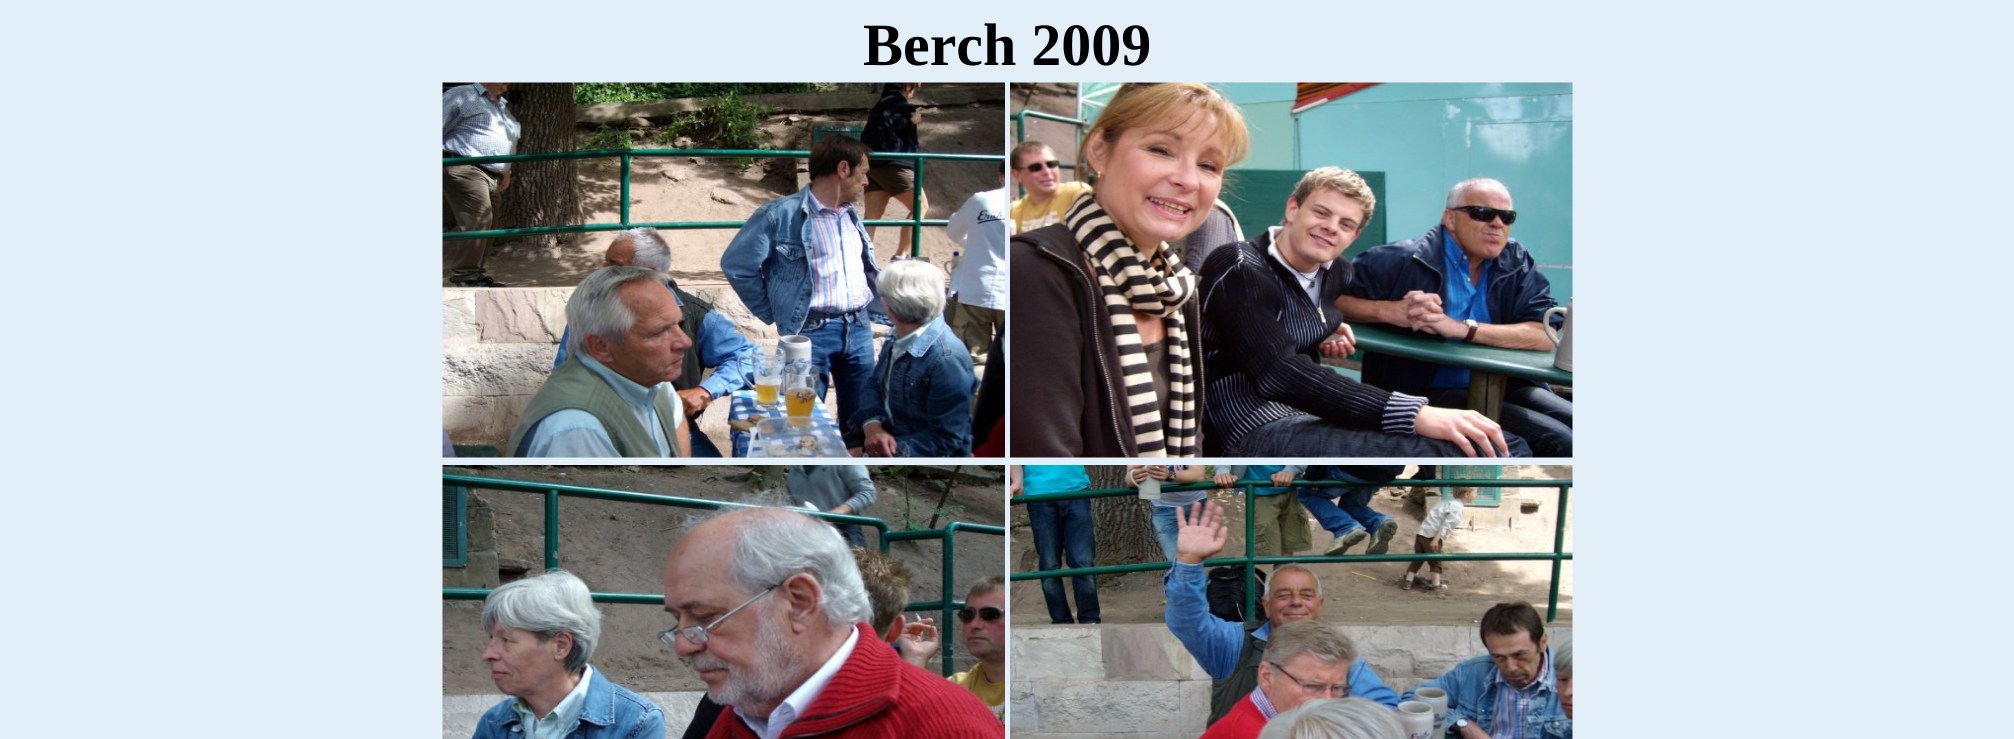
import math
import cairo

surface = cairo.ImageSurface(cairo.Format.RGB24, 2014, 739)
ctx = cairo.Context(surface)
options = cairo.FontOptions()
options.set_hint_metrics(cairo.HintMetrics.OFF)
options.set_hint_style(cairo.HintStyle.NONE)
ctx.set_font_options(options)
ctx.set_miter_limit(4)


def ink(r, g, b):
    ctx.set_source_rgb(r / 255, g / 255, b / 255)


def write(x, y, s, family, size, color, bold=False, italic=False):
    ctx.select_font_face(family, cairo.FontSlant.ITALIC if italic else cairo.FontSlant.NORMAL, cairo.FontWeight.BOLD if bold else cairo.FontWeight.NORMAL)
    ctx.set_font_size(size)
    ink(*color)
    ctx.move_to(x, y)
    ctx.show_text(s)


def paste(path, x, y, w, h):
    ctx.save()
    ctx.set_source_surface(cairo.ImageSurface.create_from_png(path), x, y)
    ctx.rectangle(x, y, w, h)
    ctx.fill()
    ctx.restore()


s1 = dict(family="Liberation Serif", size=60, color=(0, 0, 0), bold=True)

ink(226, 238, 248)
ctx.paint()
write(863, 65, "Berch 2009", **s1)
paste("pic1.png", 442, 82, 563, 376)
paste("pic2.png", 1010, 82, 563, 376)
paste("pic3.png", 442, 465, 563, 274)
paste("pic4.png", 1010, 465, 563, 274)
surface.write_to_png("screenshot.png")
